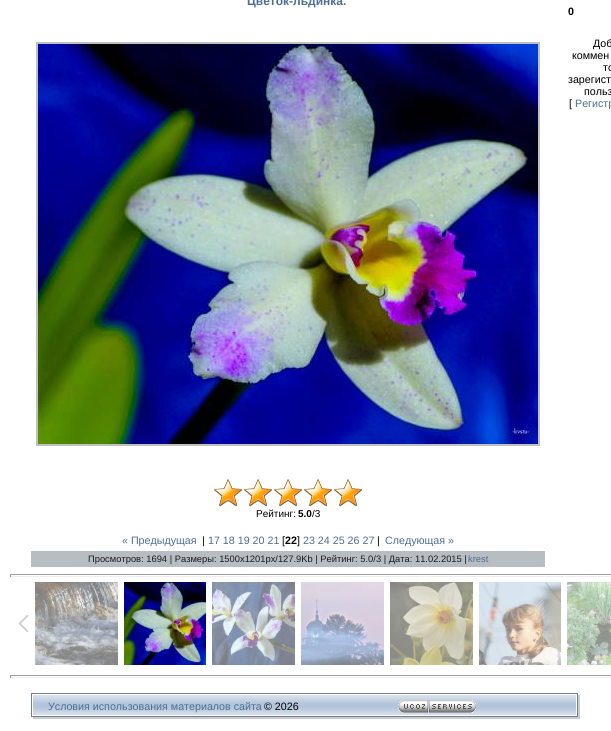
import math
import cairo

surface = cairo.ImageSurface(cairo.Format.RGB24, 611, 731)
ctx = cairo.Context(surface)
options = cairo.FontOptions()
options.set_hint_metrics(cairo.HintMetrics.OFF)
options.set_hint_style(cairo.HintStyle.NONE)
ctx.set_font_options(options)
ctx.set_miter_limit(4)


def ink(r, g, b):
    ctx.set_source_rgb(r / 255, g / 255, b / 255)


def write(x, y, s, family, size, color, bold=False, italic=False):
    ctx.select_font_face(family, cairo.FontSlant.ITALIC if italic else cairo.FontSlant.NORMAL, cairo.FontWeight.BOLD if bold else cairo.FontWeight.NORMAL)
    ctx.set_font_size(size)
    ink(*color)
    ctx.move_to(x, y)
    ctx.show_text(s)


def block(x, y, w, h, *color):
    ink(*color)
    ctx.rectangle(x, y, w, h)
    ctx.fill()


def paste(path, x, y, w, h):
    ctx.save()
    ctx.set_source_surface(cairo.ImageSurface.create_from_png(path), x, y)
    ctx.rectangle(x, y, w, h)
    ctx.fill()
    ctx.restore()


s1 = dict(family="Liberation Sans", size=12, color=(77, 109, 145), bold=True)
s2 = dict(family="Liberation Sans", size=10, color=(0, 0, 0))
s3 = dict(family="Liberation Sans", size=10, color=(0, 0, 0), bold=True)
s4 = dict(family="Liberation Sans", size=10.7, color=(77, 109, 145))
s5 = dict(family="Liberation Sans", size=10.7, color=(0, 0, 0))
s6 = dict(family="Liberation Sans", size=10.7, color=(0, 0, 0), bold=True)
s7 = dict(family="Liberation Sans", size=9.35, color=(26, 26, 26))
s8 = dict(family="Liberation Sans", size=9.35, color=(77, 109, 145))

ink(255, 255, 255)
ctx.paint()
write(247, 5, "Цветок-льдинка.", **s1)
ctx.rectangle(37, 43, 502, 402)
ink(192, 192, 192)
ctx.stroke()
paste("pic1.png", 38, 44, 500, 400)
paste("pic2.png", 214, 479, 148, 28)
paste("pic3.png", 214, 479, 148, 28)
write(256, 517, "Рейтинг:", **s2)
write(298, 517, "5.0", **s3)
write(312, 517, "/3", **s2)
write(122, 544, "« Предыдущая", **s4)
write(202, 544, "|", **s5)
write(208, 544, "17 18 19 20 21", **s4)
write(282, 544, "[", **s5)
write(285, 544, "22", **s6)
write(297, 544, "]", **s5)
write(303, 544, "23 24 25 26 27", **s4)
write(377, 544, "|", **s5)
write(385, 544, "Следующая »", **s4)
block(31, 551, 514, 16, 184, 189, 196)
write(88, 562, "Просмотров: 1694 | Размеры: 1500x1201px/127.9Kb | Рейтинг: 5.0/3 | Дата: 11.02.2015 |", **s7)
write(468, 562, "krest", **s8)
write(568, 15, "0", **s6)
write(593, 47, "Доб", **s5)
write(572, 59, "коммен", **s5)
write(603, 71, "то", **s5)
write(568, 83, "зарегист", **s5)
write(584, 95, "польз", **s5)
write(569, 107, "[", **s5)
write(575, 107, "Регистр", **s4)
block(10, 574, 601, 1, 159, 159, 159)
block(10, 576, 601, 1, 238, 238, 238)
block(10, 574, 1, 3, 159, 159, 159)
paste("pic4.png", 18, 615, 11, 17)
paste("pic5.png", 35, 582, 83, 83)
paste("pic6.png", 124, 582, 82, 83)
paste("pic7.png", 212, 582, 83, 83)
paste("pic8.png", 301, 582, 83, 83)
paste("pic9.png", 390, 582, 83, 83)
paste("pic10.png", 479, 582, 82, 83)
paste("pic11.png", 567, 582, 44, 83)
block(10, 675, 601, 1, 159, 159, 159)
block(10, 677, 601, 1, 238, 238, 238)
block(10, 675, 1, 3, 159, 159, 159)
paste("pic12.png", 31, 693, 549, 26)
paste("pic13.png", 31, 694, 2, 25)
write(48, 710, "Условия использования материалов сайта", **s4)
write(264, 710, "© 2026", **s5)
paste("pic14.png", 398, 700, 78, 13)
paste("pic15.png", 576, 693, 4, 24)
surface.write_to_png("screenshot.png")
